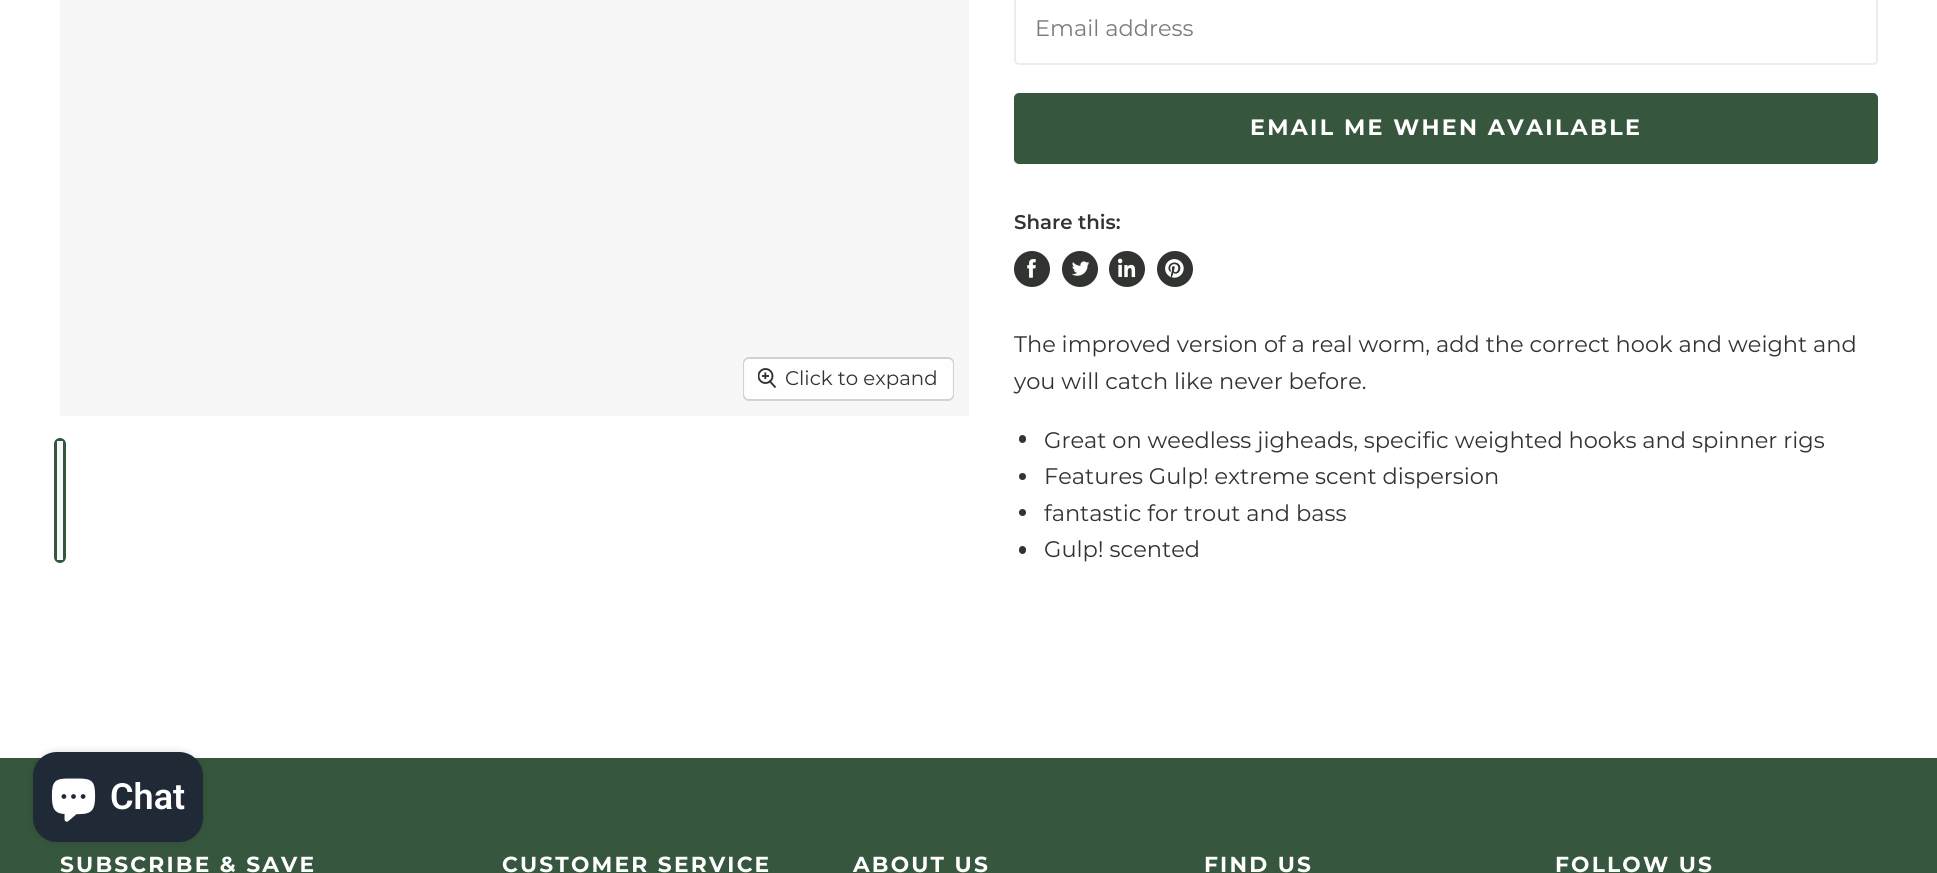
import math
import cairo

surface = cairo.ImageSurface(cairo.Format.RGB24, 1937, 873)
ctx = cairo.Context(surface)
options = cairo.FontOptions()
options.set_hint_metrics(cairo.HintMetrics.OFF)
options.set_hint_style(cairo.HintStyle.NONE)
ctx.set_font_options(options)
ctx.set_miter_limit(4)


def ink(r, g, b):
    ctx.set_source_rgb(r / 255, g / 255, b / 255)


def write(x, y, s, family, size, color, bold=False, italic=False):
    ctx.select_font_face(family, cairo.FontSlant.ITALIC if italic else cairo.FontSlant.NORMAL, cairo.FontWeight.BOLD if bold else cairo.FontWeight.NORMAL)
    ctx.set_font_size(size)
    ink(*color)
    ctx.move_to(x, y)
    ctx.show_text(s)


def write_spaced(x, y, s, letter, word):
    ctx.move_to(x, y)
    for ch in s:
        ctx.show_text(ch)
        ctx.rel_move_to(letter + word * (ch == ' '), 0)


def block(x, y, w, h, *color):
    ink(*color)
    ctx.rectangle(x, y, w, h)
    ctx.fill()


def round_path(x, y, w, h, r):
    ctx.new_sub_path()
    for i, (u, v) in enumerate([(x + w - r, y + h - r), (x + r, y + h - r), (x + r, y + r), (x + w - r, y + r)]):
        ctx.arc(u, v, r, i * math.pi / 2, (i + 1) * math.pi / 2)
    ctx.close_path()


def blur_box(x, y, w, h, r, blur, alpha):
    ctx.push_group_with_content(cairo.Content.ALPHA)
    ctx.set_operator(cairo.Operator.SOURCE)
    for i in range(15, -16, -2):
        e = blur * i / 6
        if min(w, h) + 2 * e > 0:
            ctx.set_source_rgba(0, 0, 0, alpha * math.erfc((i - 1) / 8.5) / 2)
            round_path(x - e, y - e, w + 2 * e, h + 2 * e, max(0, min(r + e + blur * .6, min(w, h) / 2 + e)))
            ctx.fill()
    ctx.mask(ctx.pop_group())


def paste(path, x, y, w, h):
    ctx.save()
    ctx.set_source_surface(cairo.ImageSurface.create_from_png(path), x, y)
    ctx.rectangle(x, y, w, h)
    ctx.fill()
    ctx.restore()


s1 = dict(family="Montserrat", size=19.75, color=(49, 52, 49))
s2 = dict(family="Montserrat", size=22.5, color=(120, 126, 120))
s3 = dict(family="Montserrat SemiBold", size=19.75, color=(49, 52, 49))
s4 = dict(family="Montserrat", size=22.5, color=(49, 52, 49))
s5 = dict(family="Roboto SemiBold", size=36, color=(255, 255, 255))

ink(255, 255, 255)
ctx.paint()
block(60, 0, 909, 416, 247, 247, 247)
round_path(744, 358, 209, 42, 5)
ink(210, 210, 210)
ctx.stroke()
ctx.set_source_rgba(1, 1, 1, 0.9)
round_path(744, 359, 209, 40, 5)
ctx.fill()
paste("pic1.png", 758, 368, 19, 20)
write(785, 385, "Click to expand", **s1)
round_path(55.5, 439.5, 9, 122, 4.5)
ink(54, 86, 61)
ctx.set_line_width(3)
ctx.stroke()
block(57, 441, 6, 119, 247, 247, 247)
round_path(1015, -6, 862, 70, 4)
ink(234, 238, 234)
ctx.set_line_width(2)
ctx.stroke()
write(1035, 36, "Email address", **s2)
ink(54, 86, 61)
round_path(1015, 94, 862, 69, 4)
ctx.fill_preserve()
ctx.stroke()
ctx.select_font_face("Montserrat", cairo.FontSlant.NORMAL, cairo.FontWeight.BOLD)
ctx.set_font_size(22.3)
ink(255, 255, 255)
write_spaced(1250, 135, "EMAIL ME WHEN AVAILABLE", 2.25, 0)
write(1014, 229, "Share this:", **s3)
ctx.new_path()
ctx.arc(1032, 269, 18, 0, 2 * math.pi)
ctx.fill()
paste("pic2.png", 1027, 259, 9, 19)
ctx.arc(1080, 269, 18, 0, 2 * math.pi)
ctx.fill()
paste("pic3.png", 1071, 261, 19, 15)
ctx.arc(1127, 269, 18, 0, 2 * math.pi)
ctx.fill()
paste("pic4.png", 1118, 258, 18, 20)
ctx.arc(1175, 269, 18, 0, 2 * math.pi)
ctx.fill()
paste("pic5.png", 1165, 259, 19, 19)
write(1014, 352, "The improved version of a real worm, add the correct hook and weight and", **s4)
write(1014, 389, "you will catch like never before.", **s4)
round_path(1019, 435, 7, 8, 3.5)
ctx.fill()
write(1044, 448, "Great on weedless jigheads, specific weighted hooks and spinner rigs", **s4)
ctx.new_path()
ctx.arc(1022.5, 476.5, 3.5, 0, 2 * math.pi)
ctx.fill()
write(1044, 484, "Features Gulp! extreme scent dispersion", **s4)
ctx.new_path()
ctx.arc(1022.5, 512.5, 3.5, 0, 2 * math.pi)
ctx.fill()
write(1044, 521, "fantastic for trout and bass", **s4)
round_path(1019, 546, 7, 8, 3.5)
ctx.fill()
write(1044, 557, "Gulp! scented", **s4)
block(0, 758, 1937, 115, 54, 86, 61)
ink(0, 0, 0)
blur_box(33, 752, 170, 90, 24, 4, 0.15)
ink(32, 42, 54)
round_path(33, 752, 170, 90, 24)
ctx.fill()
paste("pic6.png", 51, 778, 45, 44)
write(110, 809, "Chat", **s5)
ctx.select_font_face("Montserrat", cairo.FontSlant.NORMAL, cairo.FontWeight.BOLD)
ctx.set_font_size(21.75)
write_spaced(60, 872, "SUBSCRIBE & SAVE", 2.2, 0)
write_spaced(502, 872, "CUSTOMER SERVICE", 2.2, 0)
write_spaced(853, 872, "ABOUT US", 2.2, 0)
write_spaced(1204, 872, "FIND US", 2.2, 0)
write_spaced(1555, 872, "FOLLOW US", 2.2, 0)
surface.write_to_png("screenshot.png")
